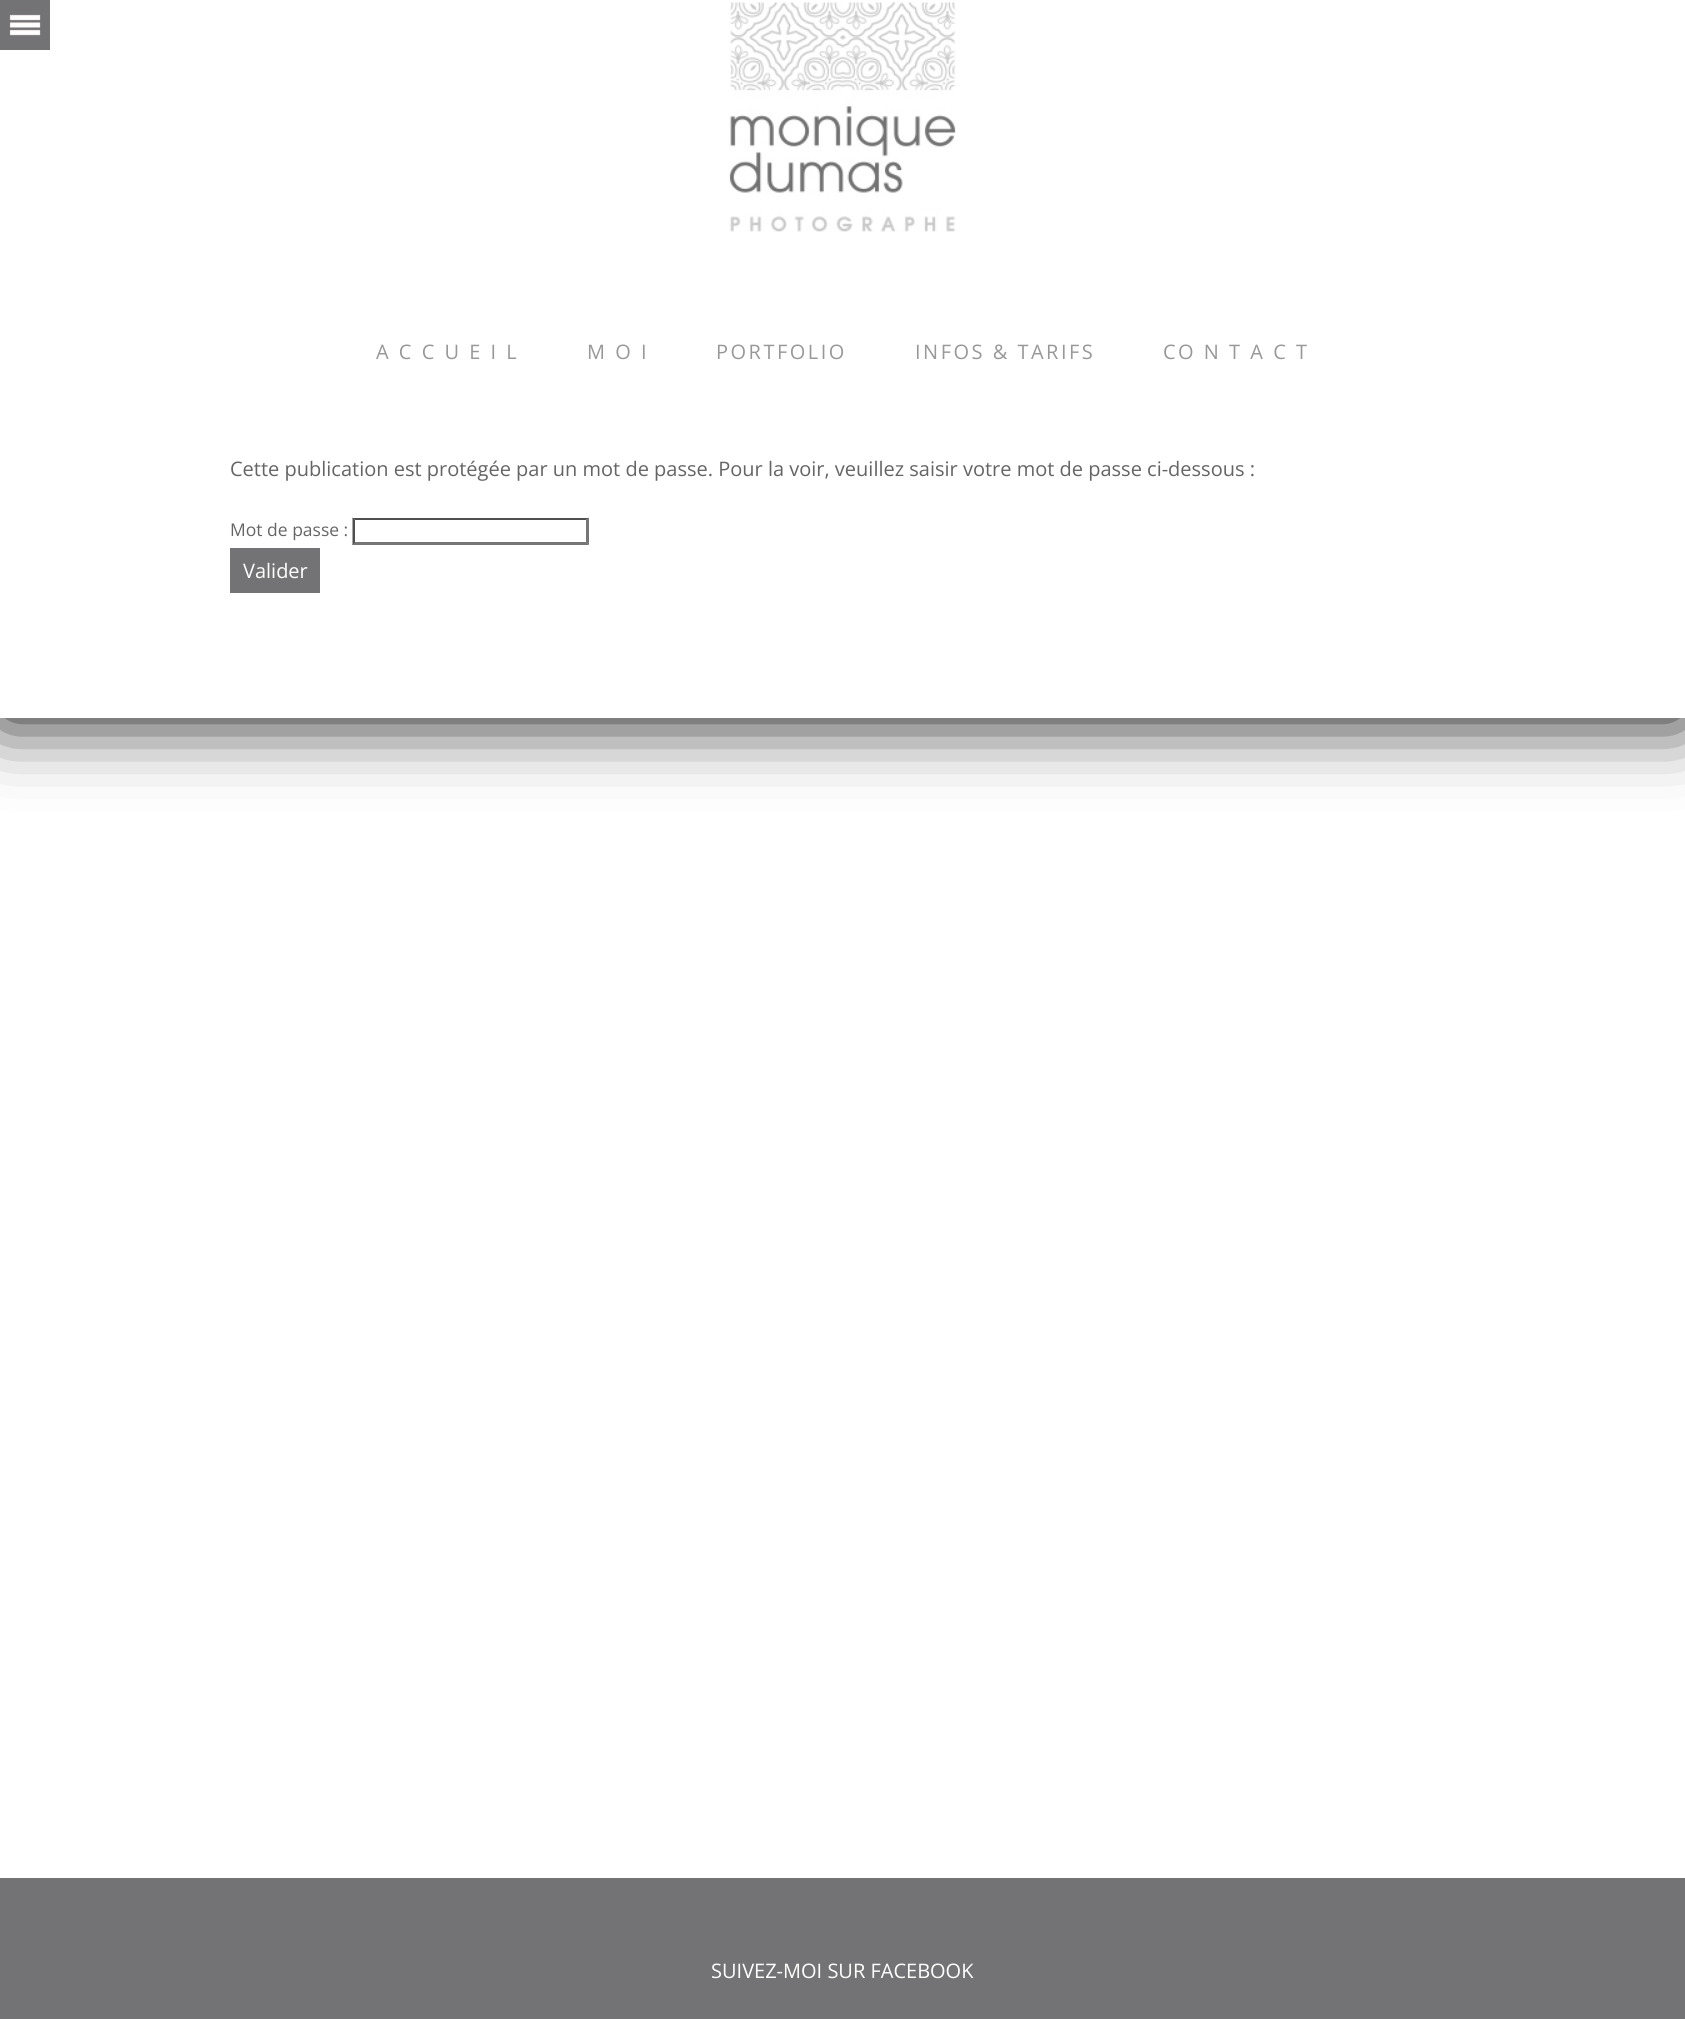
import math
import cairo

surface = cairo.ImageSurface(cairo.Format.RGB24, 1685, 2019)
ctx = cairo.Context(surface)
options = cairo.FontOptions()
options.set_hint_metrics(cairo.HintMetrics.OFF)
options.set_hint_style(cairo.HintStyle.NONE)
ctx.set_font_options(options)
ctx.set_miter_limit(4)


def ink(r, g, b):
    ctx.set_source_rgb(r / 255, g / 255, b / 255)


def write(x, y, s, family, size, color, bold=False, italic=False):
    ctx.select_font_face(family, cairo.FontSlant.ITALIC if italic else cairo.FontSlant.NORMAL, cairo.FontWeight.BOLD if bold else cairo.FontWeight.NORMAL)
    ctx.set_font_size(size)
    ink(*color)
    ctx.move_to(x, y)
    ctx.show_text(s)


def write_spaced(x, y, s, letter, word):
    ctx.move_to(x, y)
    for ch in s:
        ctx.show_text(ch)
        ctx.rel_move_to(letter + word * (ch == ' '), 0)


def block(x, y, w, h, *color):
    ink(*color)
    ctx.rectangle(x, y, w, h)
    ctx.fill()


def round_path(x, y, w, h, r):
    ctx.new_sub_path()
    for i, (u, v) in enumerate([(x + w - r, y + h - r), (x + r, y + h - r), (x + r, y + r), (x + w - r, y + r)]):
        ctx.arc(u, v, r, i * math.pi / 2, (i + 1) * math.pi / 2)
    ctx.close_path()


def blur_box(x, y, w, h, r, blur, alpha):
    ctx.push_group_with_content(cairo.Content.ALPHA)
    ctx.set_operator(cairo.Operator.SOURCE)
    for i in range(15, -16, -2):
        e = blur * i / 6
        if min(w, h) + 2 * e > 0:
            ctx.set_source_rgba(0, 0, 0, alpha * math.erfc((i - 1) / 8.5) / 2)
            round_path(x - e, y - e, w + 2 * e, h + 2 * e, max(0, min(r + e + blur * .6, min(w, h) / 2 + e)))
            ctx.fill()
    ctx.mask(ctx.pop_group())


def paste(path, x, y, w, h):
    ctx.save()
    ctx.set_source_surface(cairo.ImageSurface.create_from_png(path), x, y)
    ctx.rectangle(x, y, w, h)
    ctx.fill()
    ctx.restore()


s1 = dict(family="Open Sans", size=20, color=(101, 101, 101))
s2 = dict(family="Open Sans", size=17.5, color=(101, 101, 101))
s3 = dict(family="Open Sans", size=20, color=(255, 255, 255))

ink(255, 255, 255)
ctx.paint()
ink(0, 0, 0)
blur_box(0, -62, 1685, 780, 0, 37.5, 1)
block(0, 0, 1685, 718, 255, 255, 255)
block(0, 0, 50, 50, 115, 115, 117)
paste("pic1.png", 9, 14, 32, 22)
paste("pic2.png", 729, 2, 227, 230)
ctx.select_font_face("Open Sans")
ctx.set_font_size(20)
ink(152, 152, 152)
write_spaced(376, 359, "A C C U E I L", 2.5, 0)
write_spaced(587, 359, "M O I", 2.5, 0)
write_spaced(716, 359, "PORTFOLIO", 2.5, 0)
write_spaced(915, 359, "INFOS & TARIFS", 2.5, 0)
write_spaced(1163, 359, "CO N T A C T", 2.5, 0)
write(230, 476, "Cette publication est protégée par un mot de passe. Pour la voir, veuillez saisir votre mot de passe ci-dessous :", **s1)
write(230, 536, "Mot de passe :", **s2)
ink(79, 79, 79)
ctx.new_path()
ctx.move_to(352, 518)
ctx.line_to(589, 518)
ctx.line_to(586, 520)
ctx.line_to(355, 520)
ctx.close_path()
ctx.fill()
ink(118, 118, 118)
ctx.new_path()
ctx.move_to(589, 517.5)
ctx.line_to(589, 545)
ctx.line_to(586, 542.5)
ctx.line_to(586, 520)
ctx.close_path()
ctx.fill()
ctx.new_path()
ctx.move_to(589, 545)
ctx.line_to(352, 545)
ctx.line_to(355, 542)
ctx.line_to(586, 542)
ctx.close_path()
ctx.fill()
ink(79, 79, 79)
ctx.new_path()
ctx.move_to(352.5, 545)
ctx.line_to(352.5, 517.5)
ctx.line_to(355, 520)
ctx.line_to(355, 542.5)
ctx.close_path()
ctx.fill()
block(230, 548, 90, 45, 115, 115, 117)
write(243, 578, "Valider", **s3)
block(0, 1878, 1685, 141, 115, 115, 117)
write(711, 1978, "SUIVEZ-MOI SUR FACEBOOK", **s3)
surface.write_to_png("screenshot.png")
